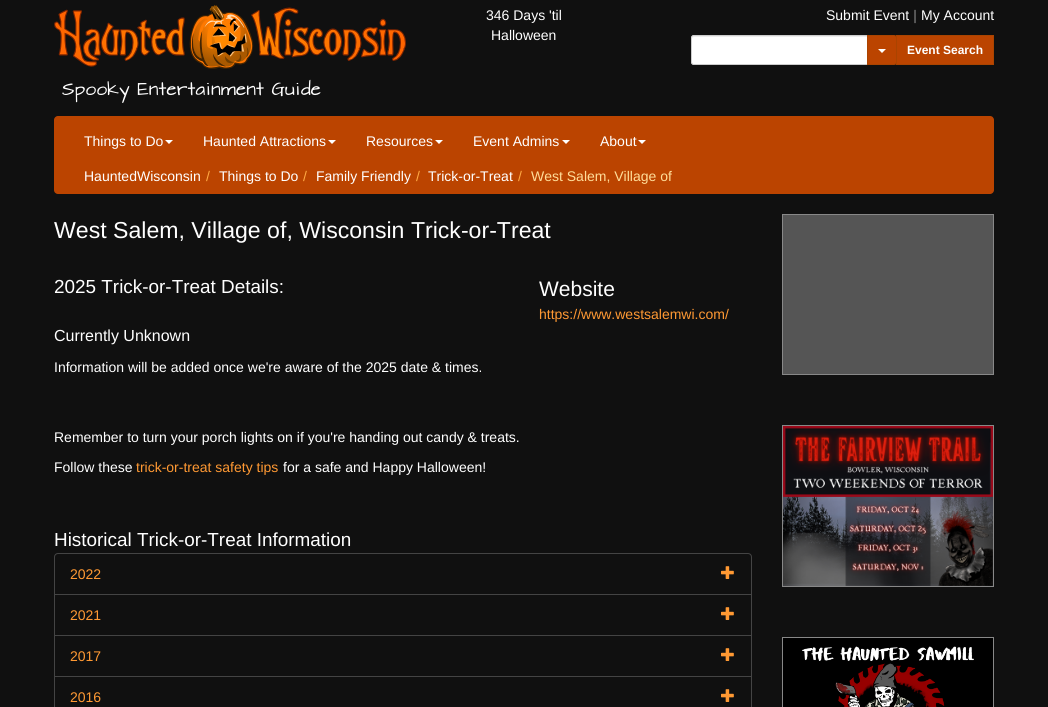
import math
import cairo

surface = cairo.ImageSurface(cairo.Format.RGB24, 1048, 707)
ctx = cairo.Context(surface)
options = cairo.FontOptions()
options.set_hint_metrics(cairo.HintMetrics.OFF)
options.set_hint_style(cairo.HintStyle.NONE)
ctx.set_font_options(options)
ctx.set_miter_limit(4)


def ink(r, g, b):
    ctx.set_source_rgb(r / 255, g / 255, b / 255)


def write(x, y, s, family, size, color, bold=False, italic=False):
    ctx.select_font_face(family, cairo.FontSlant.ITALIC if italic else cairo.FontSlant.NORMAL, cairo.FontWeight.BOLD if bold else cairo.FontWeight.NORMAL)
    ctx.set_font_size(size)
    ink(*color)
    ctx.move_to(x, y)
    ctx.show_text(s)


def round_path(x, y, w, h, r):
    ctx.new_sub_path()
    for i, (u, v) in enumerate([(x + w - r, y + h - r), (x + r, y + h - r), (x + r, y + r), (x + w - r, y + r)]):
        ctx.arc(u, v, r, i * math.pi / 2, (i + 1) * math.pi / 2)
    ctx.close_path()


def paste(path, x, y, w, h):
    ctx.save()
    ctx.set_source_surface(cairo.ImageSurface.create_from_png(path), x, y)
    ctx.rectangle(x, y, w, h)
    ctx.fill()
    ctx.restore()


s1 = dict(family="Liberation Sans", size=14, color=(255, 255, 255))
s2 = dict(family="Liberation Sans", size=14, color=(136, 136, 136), italic=True)
s3 = dict(family="Liberation Sans", size=12, color=(255, 255, 255), bold=True)
s4 = dict(family="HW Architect", size=15.5, color=(255, 255, 255))
s5 = dict(family="Liberation Sans", size=14, color=(255, 170, 68))
s6 = dict(family="Liberation Sans", size=14, color=(255, 221, 153))
s7 = dict(family="Liberation Sans", size=23.1, color=(255, 255, 255))
s8 = dict(family="Liberation Sans", size=18.9, color=(255, 255, 255))
s9 = dict(family="Liberation Sans", size=16, color=(255, 255, 255))
s10 = dict(family="Liberation Sans", size=21, color=(255, 255, 255))
s11 = dict(family="Liberation Sans", size=14, color=(255, 153, 51))

ink(16, 16, 16)
ctx.paint()
write(486, 20, "346 Days 'til", **s1)
write(491, 40, "Halloween", **s1)
write(826, 20, "Submit Event", **s1)
write(913, 20, "|", **s2)
write(921, 20, "My Account", **s1)
ctx.new_path()
ctx.move_to(694, 35)
ctx.line_to(868, 35)
ctx.line_to(868, 65)
ctx.line_to(694, 65)
ctx.curve_to(692.5, 65, 691, 63.5, 691, 62)
ctx.line_to(691, 38)
ctx.curve_to(691, 36.5, 692.5, 35, 694, 35)
ctx.close_path()
ctx.fill()
ink(236, 236, 236)
ctx.new_path()
ctx.move_to(694, 37)
ctx.line_to(867, 37)
ctx.line_to(867, 36)
ctx.line_to(693, 36)
ctx.curve_to(692, 37, 692, 38, 692, 39)
ctx.curve_to(692, 38, 693, 37, 694, 37)
ctx.close_path()
ctx.fill()
ctx.new_path()
ctx.move_to(694, 35.5)
ctx.line_to(867.5, 35.5)
ctx.line_to(867.5, 64.5)
ctx.line_to(694, 64.5)
ctx.curve_to(692.5, 64.5, 691.5, 63.5, 691.5, 62)
ctx.line_to(691.5, 38)
ctx.curve_to(691.5, 36.5, 692.5, 35.5, 694, 35.5)
ctx.close_path()
ink(204, 204, 204)
ctx.set_line_width(1)
ctx.stroke()
ink(187, 68, 0)
ctx.new_path()
ctx.move_to(867.5, 35.5)
ctx.line_to(894, 35.5)
ctx.curve_to(895.5, 35.5, 896.5, 36.5, 896.5, 38)
ctx.line_to(896.5, 62)
ctx.curve_to(896.5, 63.5, 895.5, 64.5, 894, 64.5)
ctx.line_to(867.5, 64.5)
ctx.close_path()
ctx.fill_preserve()
ink(170, 68, 0)
ctx.stroke()
ink(255, 255, 255)
ctx.new_path()
ctx.move_to(878, 49)
ctx.line_to(886, 49)
ctx.line_to(882, 53)
ctx.close_path()
ctx.fill()
ink(187, 68, 0)
ctx.rectangle(896.5, 35.5, 97, 29)
ctx.fill_preserve()
ink(170, 68, 0)
ctx.stroke()
write(907, 54, "Event Search", **s3)
paste("pic1.png", 54, 5, 352, 64)
write(62, 95, "Spooky Entertainment Guide", **s4)
ink(187, 68, 0)
round_path(54, 116, 940, 78, 4)
ctx.fill()
write(84, 146, "Things to Do", **s1)
ctx.new_path()
ctx.move_to(165, 140)
ctx.line_to(173, 140)
ctx.line_to(169, 144)
ctx.close_path()
ctx.fill()
write(203, 146, "Haunted Attractions", **s1)
ctx.new_path()
ctx.move_to(328, 140)
ctx.line_to(336, 140)
ctx.line_to(332, 144)
ctx.close_path()
ctx.fill()
write(366, 146, "Resources", **s1)
ctx.new_path()
ctx.move_to(435, 140)
ctx.line_to(443, 140)
ctx.line_to(439, 144)
ctx.close_path()
ctx.fill()
write(473, 146, "Event Admins", **s1)
ctx.new_path()
ctx.move_to(562, 140)
ctx.line_to(570, 140)
ctx.line_to(566, 144)
ctx.close_path()
ctx.fill()
write(600, 146, "About", **s1)
ctx.new_path()
ctx.move_to(638, 140)
ctx.line_to(646, 140)
ctx.line_to(642, 144)
ctx.close_path()
ctx.fill()
write(84, 181, "HauntedWisconsin", **s1)
write(206, 181, "/", **s5)
write(219, 181, "Things to Do", **s1)
write(303, 181, "/", **s5)
write(316, 181, "Family Friendly", **s1)
write(416, 181, "/", **s5)
write(428, 181, "Trick-or-Treat", **s1)
write(518, 181, "/", **s5)
write(531, 181, "West Salem, Village of", **s6)
write(54, 238, "West Salem, Village of, Wisconsin Trick-or-Treat", **s7)
write(54, 293, "2025 Trick-or-Treat Details:", **s8)
write(54, 341, "Currently Unknown", **s9)
write(54, 372, "Information will be added once we're aware of the 2025 date & times.", **s1)
write(539, 296, "Website", **s10)
write(539, 319, "https://www.westsalemwi.com/", **s11)
write(54, 442, "Remember to turn your porch lights on if you're handing out candy & treats.", **s1)
write(54, 472, "Follow these", **s1)
write(136, 472, "trick-or-treat safety tips", **s11)
write(283, 472, "for a safe and Happy Halloween!", **s1)
write(54, 546, "Historical Trick-or-Treat Information", **s8)
ctx.new_path()
ctx.move_to(58, 553.5)
ctx.line_to(748, 553.5)
ctx.curve_to(750, 553.5, 751.5, 555, 751.5, 557)
ctx.line_to(751.5, 594.5)
ctx.line_to(54.5, 594.5)
ctx.line_to(54.5, 557)
ctx.curve_to(54.5, 555, 56, 553.5, 58, 553.5)
ctx.close_path()
ink(68, 68, 68)
ctx.stroke()
write(70, 579, "2022", **s11)
paste("pic2.png", 721, 566, 13, 13)
ctx.rectangle(54.5, 594.5, 697, 41)
ink(68, 68, 68)
ctx.stroke()
write(70, 620, "2021", **s11)
paste("pic3.png", 721, 607, 13, 13)
ctx.rectangle(54.5, 635.5, 697, 41)
ink(68, 68, 68)
ctx.stroke()
write(70, 661, "2017", **s11)
paste("pic3.png", 721, 648, 13, 13)
ctx.rectangle(54.5, 676.5, 697, 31)
ink(68, 68, 68)
ctx.stroke()
write(70, 702, "2016", **s11)
paste("pic3.png", 721, 689, 13, 13)
ink(85, 85, 85)
ctx.rectangle(782.5, 214.5, 211, 160)
ctx.fill_preserve()
ink(136, 136, 136)
ctx.stroke()
ctx.rectangle(782.5, 425.5, 211, 161)
ctx.stroke()
paste("pic4.png", 783, 426, 210, 160)
ctx.rectangle(782.5, 637.5, 211, 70)
ctx.stroke()
paste("pic5.png", 783, 638, 210, 69)
surface.write_to_png("screenshot.png")
